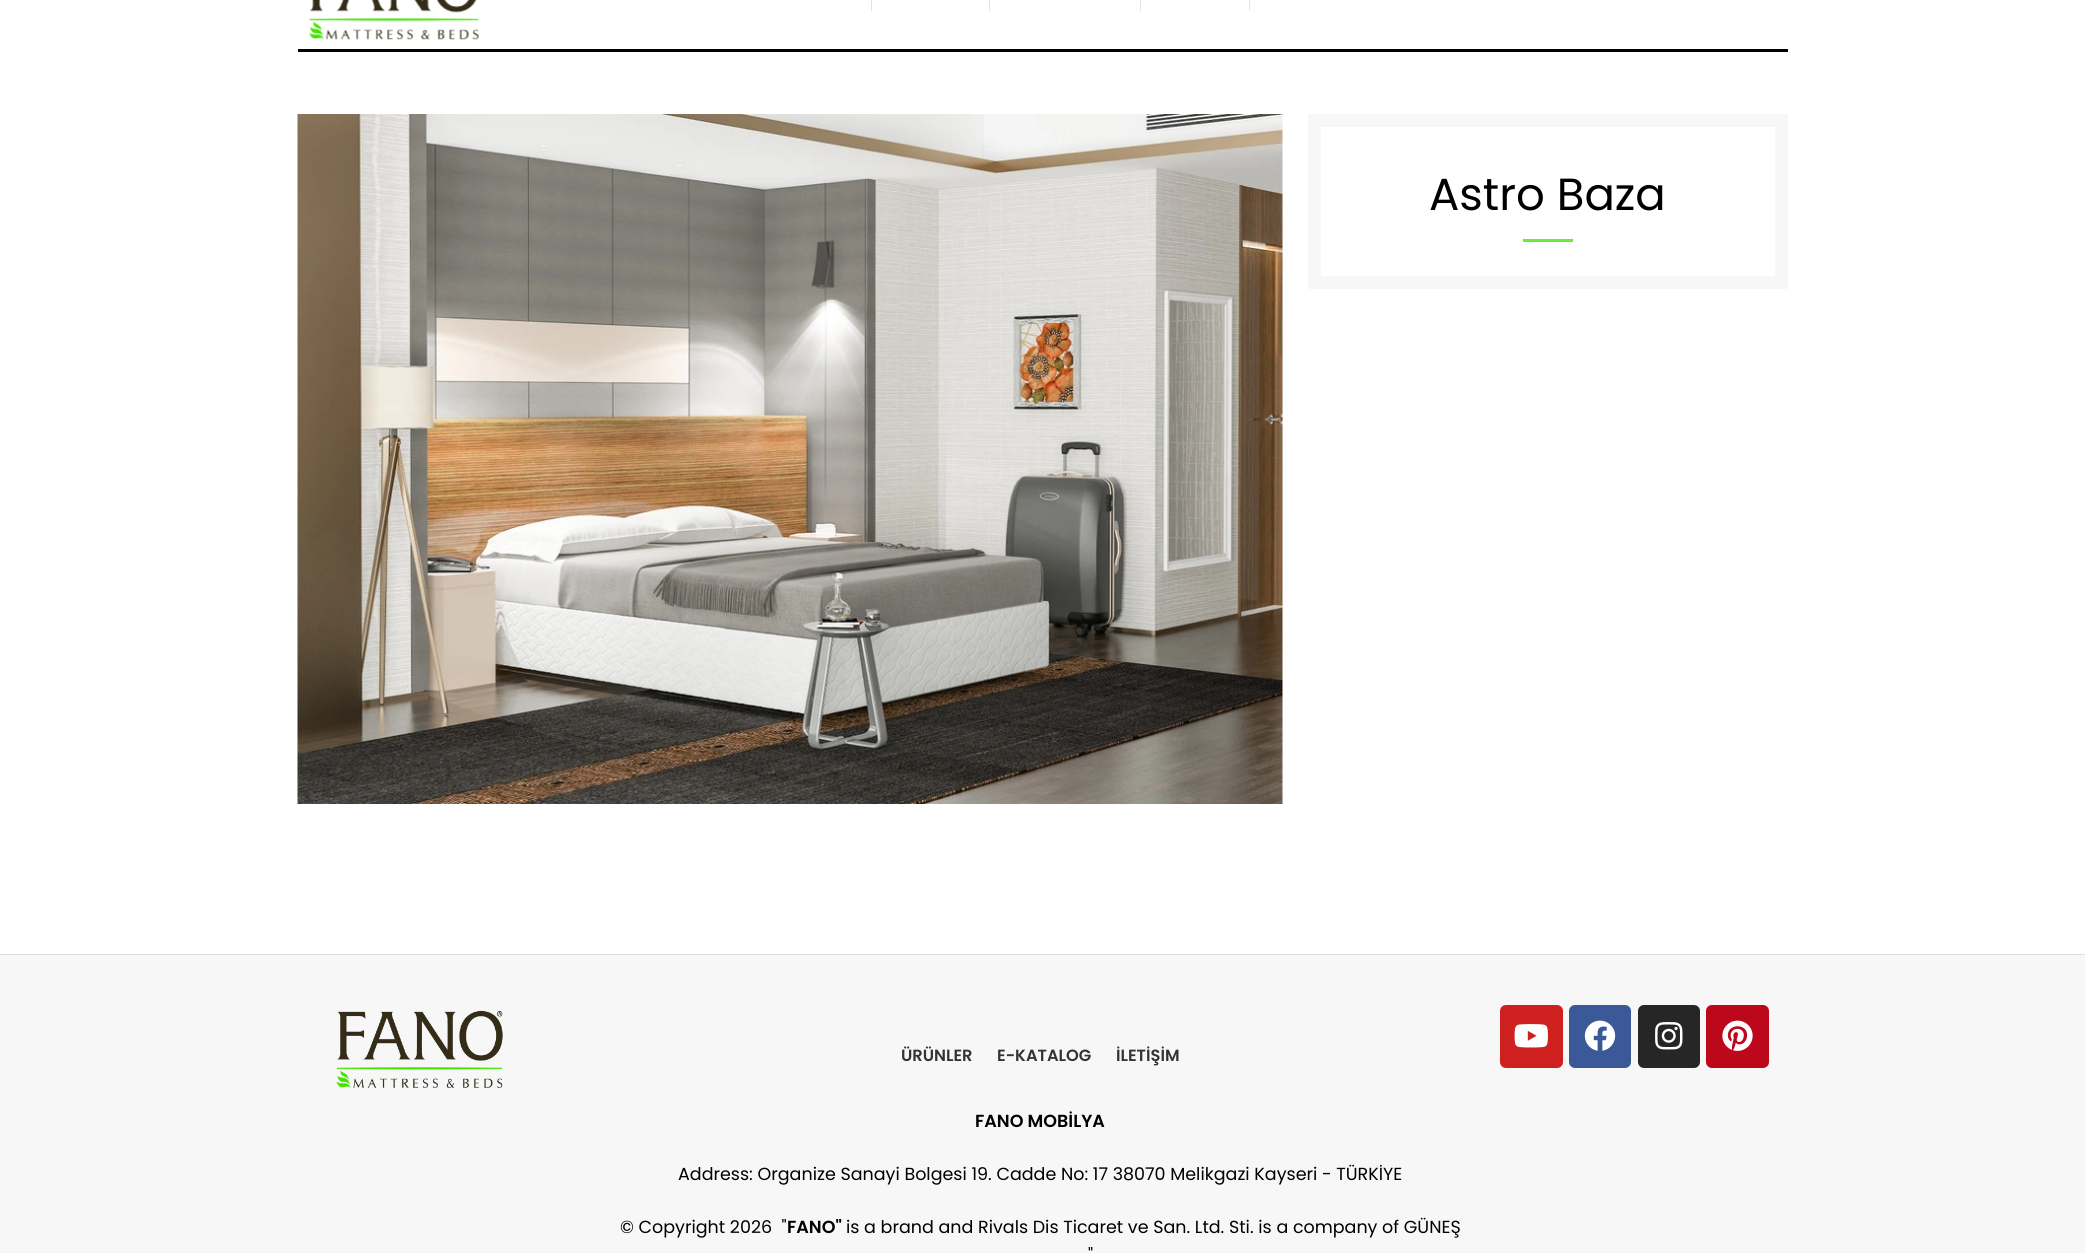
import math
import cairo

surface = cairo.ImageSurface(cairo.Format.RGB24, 2085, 1253)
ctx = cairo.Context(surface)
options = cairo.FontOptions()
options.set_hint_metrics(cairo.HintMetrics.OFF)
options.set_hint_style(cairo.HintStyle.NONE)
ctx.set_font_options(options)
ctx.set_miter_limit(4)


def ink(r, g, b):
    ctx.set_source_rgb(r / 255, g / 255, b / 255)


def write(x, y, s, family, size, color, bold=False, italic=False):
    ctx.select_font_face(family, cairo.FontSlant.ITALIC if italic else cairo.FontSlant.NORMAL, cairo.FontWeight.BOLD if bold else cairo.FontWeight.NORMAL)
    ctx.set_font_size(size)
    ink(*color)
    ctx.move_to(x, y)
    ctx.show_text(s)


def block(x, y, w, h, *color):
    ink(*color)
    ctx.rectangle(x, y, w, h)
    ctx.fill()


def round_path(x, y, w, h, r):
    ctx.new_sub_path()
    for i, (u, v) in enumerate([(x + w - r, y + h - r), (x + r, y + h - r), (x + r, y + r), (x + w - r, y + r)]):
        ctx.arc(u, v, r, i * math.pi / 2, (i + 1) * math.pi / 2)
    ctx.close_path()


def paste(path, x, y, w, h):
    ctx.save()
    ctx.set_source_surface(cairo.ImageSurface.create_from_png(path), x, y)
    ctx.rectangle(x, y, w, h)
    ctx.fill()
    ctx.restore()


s1 = dict(family="Poppins", size=45, color=(0, 0, 0))
s2 = dict(family="Poppins SemiBold", size=16.25, color=(51, 51, 51))
s3 = dict(family="Poppins SemiBold", size=17.5, color=(0, 0, 0))
s4 = dict(family="Poppins", size=17.5, color=(0, 0, 0))

ink(255, 255, 255)
ctx.paint()
block(298, 49, 1490, 3, 0, 0, 0)
paste("pic1.png", 309, 0, 170, 40)
block(871, 0, 1, 11, 228, 228, 228)
block(989, 0, 1, 11, 228, 228, 228)
block(1140, 0, 1, 11, 228, 228, 228)
block(1249, 0, 1, 11, 228, 228, 228)
paste("pic2.png", 297, 114, 986, 690)
ctx.rectangle(1314.5, 120.5, 467, 162)
ink(247, 247, 247)
ctx.set_line_width(13)
ctx.stroke()
write(1429, 210, "Astro Baza", **s1)
block(1523, 239, 50, 3, 109, 233, 62)
block(0, 955, 2085, 298, 247, 247, 247)
block(0, 954, 2085, 1, 223, 223, 223)
paste("pic3.png", 336, 1010, 167, 78)
write(901, 1061, "ÜRÜNLER", **s2)
write(997, 1061, "E-KATALOG", **s2)
write(1116, 1061, "İLETİŞİM", **s2)
write(975, 1127, "FANO MOBİLYA", **s3)
write(678, 1180, "Address: Organize Sanayi Bolgesi 19. Cadde No: 17 38070 Melikgazi Kayseri - TÜRKİYE", **s4)
write(620, 1233, "© Copyright 2026  \"", **s4)
write(787, 1233, "FANO\"", **s3)
write(846, 1233, "is a brand and Rivals Dis Ticaret ve San. Ltd. Sti. is a company of GÜNEŞ", **s4)
write(1088, 1261, "\"", **s4)
ink(205, 32, 31)
round_path(1500, 1005, 63, 63, 6)
ctx.fill()
paste("pic4.png", 1514, 1024, 34, 24)
ink(59, 89, 152)
round_path(1569, 1005, 62, 63, 6)
ctx.fill()
paste("pic5.png", 1584, 1020, 32, 31)
ink(38, 38, 38)
round_path(1638, 1005, 62, 63, 6)
ctx.fill()
paste("pic6.png", 1655, 1022, 28, 28)
ink(189, 8, 28)
round_path(1706, 1005, 63, 63, 6)
ctx.fill()
paste("pic7.png", 1722, 1020, 31, 31)
surface.write_to_png("screenshot.png")
